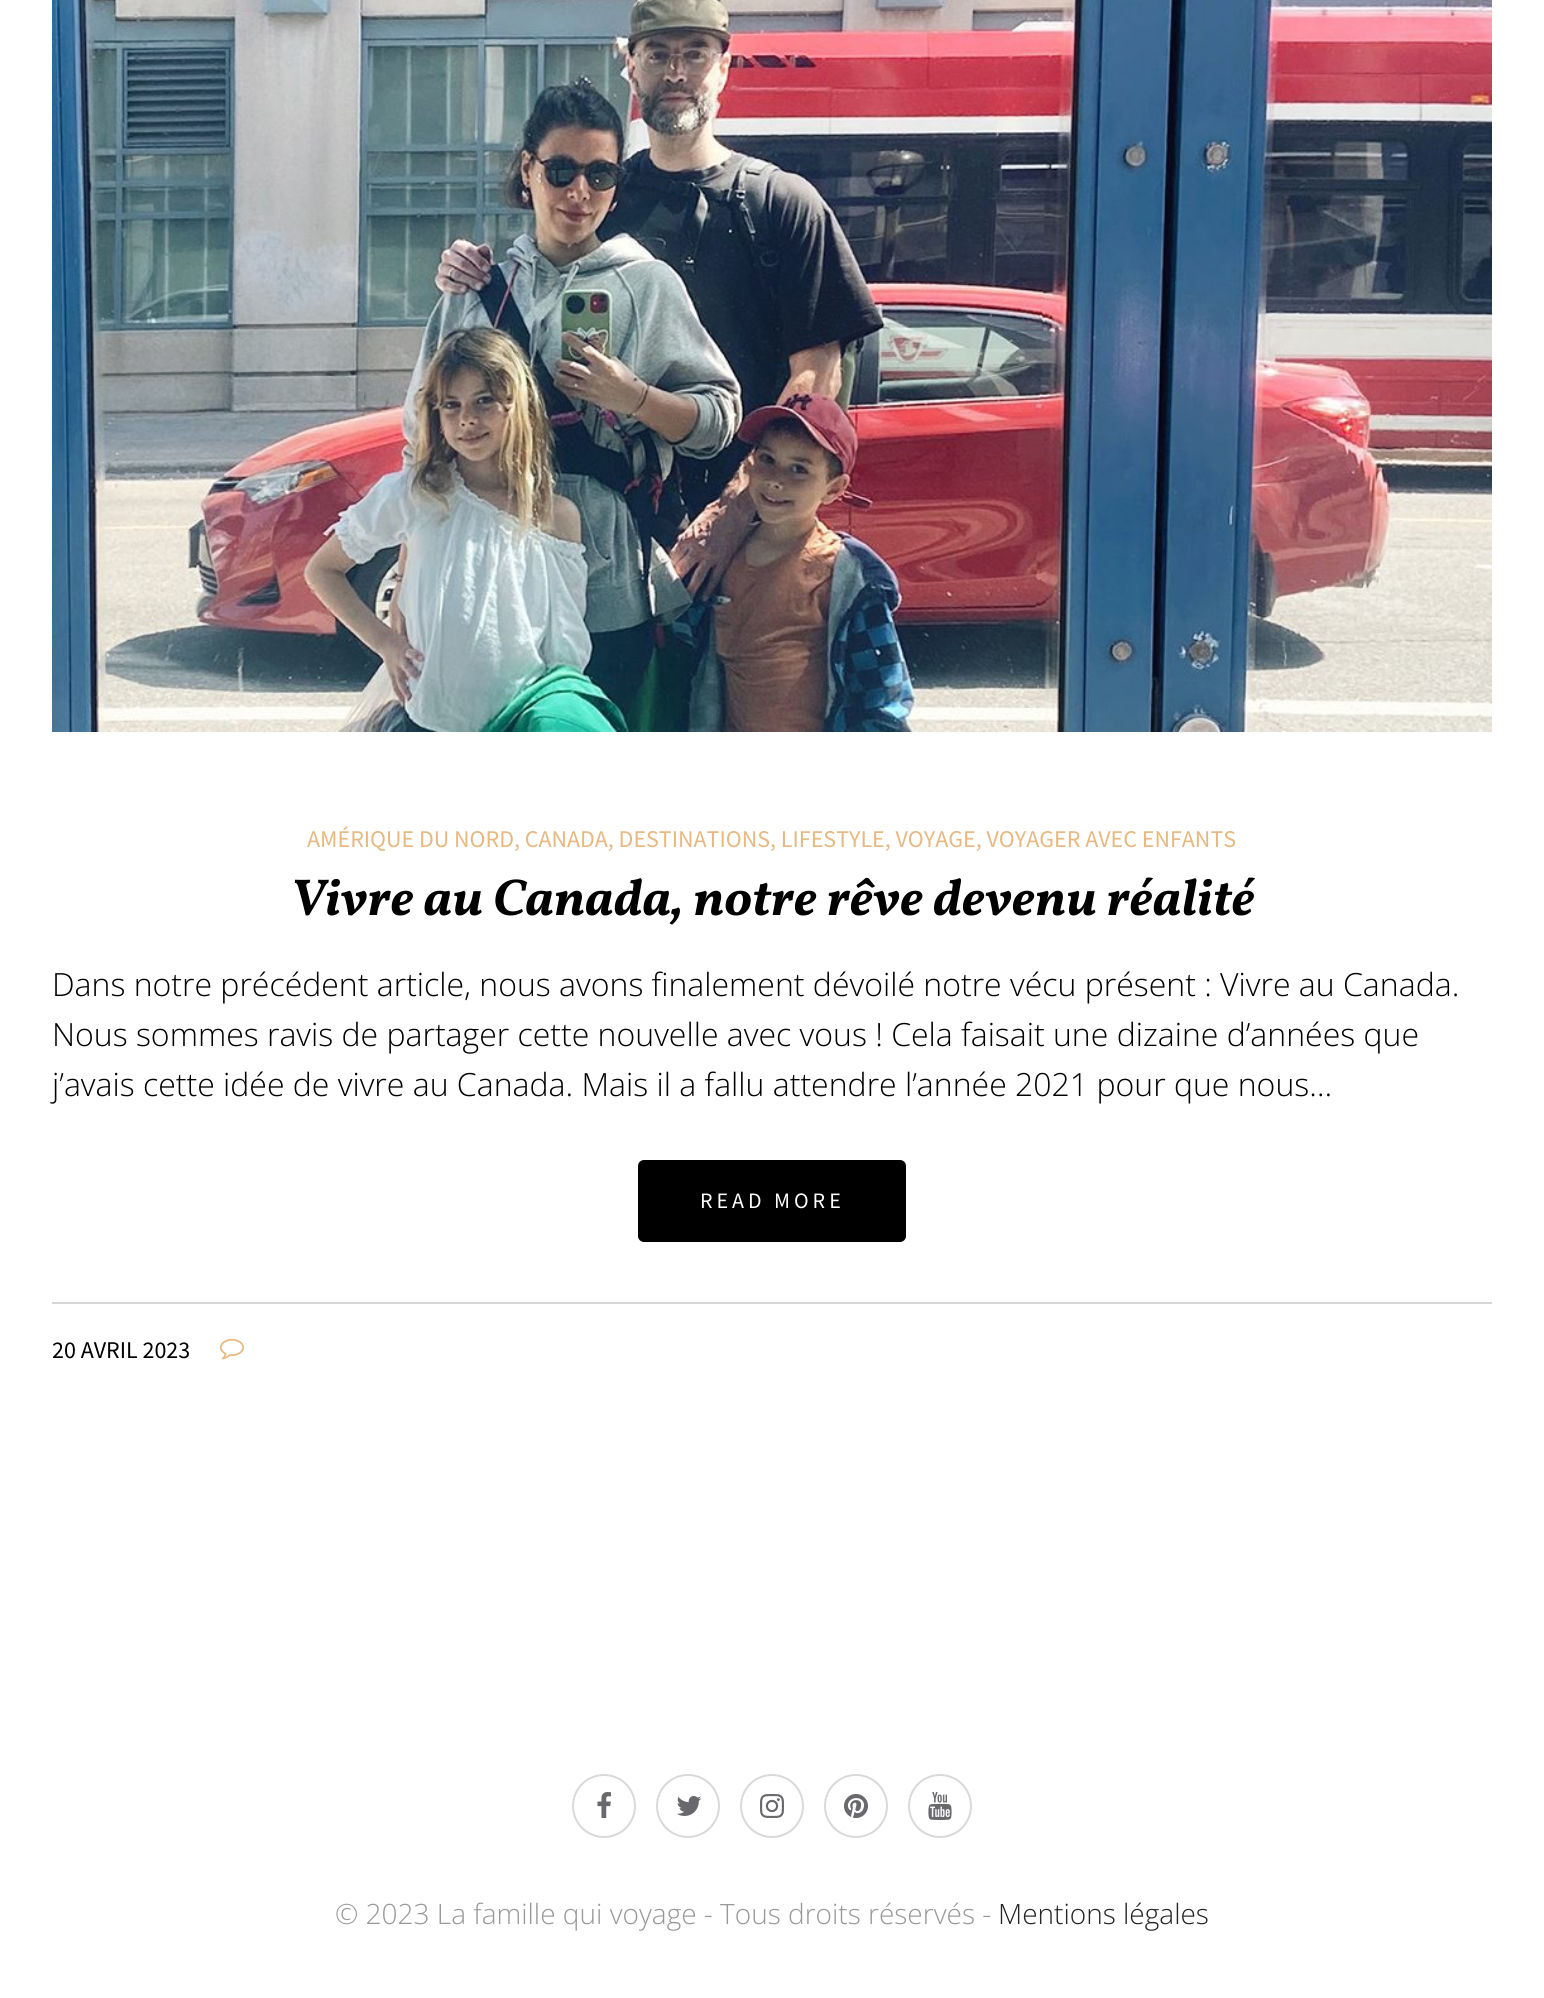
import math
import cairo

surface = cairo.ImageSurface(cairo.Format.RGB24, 1544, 1998)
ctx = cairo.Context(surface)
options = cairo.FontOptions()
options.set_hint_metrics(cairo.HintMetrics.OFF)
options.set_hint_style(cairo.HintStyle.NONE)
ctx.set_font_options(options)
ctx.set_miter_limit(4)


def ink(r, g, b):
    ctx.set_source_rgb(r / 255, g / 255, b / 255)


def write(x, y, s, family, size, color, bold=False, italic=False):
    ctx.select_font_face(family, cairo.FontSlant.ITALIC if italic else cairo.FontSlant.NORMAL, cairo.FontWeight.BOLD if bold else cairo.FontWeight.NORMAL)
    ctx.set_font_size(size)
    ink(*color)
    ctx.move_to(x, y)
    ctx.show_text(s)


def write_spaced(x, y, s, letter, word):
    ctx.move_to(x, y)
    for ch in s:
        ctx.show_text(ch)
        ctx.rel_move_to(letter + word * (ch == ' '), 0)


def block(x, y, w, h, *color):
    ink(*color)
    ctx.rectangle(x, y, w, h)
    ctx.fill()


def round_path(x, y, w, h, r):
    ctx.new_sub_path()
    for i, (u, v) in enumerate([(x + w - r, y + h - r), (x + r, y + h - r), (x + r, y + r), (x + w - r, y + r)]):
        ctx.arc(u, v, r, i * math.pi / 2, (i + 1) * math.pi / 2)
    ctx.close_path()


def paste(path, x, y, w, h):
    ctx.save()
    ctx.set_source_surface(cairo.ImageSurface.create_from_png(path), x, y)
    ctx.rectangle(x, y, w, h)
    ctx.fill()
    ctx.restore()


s1 = dict(family="Source Sans Pro", size=24, color=(231, 184, 129))
s2 = dict(family="Vollkorn", size=52, color=(0, 0, 0), bold=True, italic=True)
s3 = dict(family="Open Sans Light", size=32, color=(0, 0, 0))
s4 = dict(family="Source Sans Pro", size=24, color=(0, 0, 0))
s5 = dict(family="Open Sans Light", size=28, color=(152, 152, 152))
s6 = dict(family="Open Sans Light", size=28, color=(36, 36, 36))

ink(255, 255, 255)
ctx.paint()
paste("pic1.png", 52, 0, 1440, 732)
write(307, 847, "AMÉRIQUE DU NORD, CANADA, DESTINATIONS, LIFESTYLE, VOYAGE, VOYAGER AVEC ENFANTS", **s1)
write(290, 915, "Vivre au Canada, notre rêve devenu réalité", **s2)
write(52, 996, "Dans notre précédent article, nous avons finalement dévoilé notre vécu présent : Vivre au Canada.", **s3)
write(52, 1046, "Nous sommes ravis de partager cette nouvelle avec vous ! Cela faisait une dizaine d’années que", **s3)
write(52, 1096, "j’avais cette idée de vivre au Canada. Mais il a fallu attendre l’année 2021 pour que nous…", **s3)
round_path(639, 1161, 266, 80, 5)
ctx.fill_preserve()
ctx.stroke()
ctx.select_font_face("Source Sans Pro")
ctx.set_font_size(22)
ink(255, 255, 255)
write_spaced(700, 1208, "READ MORE", 4, 0)
block(52, 1302, 1440, 2, 214, 214, 214)
write(52, 1358, "20 AVRIL 2023", **s4)
paste("pic2.png", 220, 1338, 24, 22)
ctx.arc(604, 1806, 31, 0, 2 * math.pi)
ink(217, 217, 217)
ctx.stroke()
paste("pic3.png", 597, 1792, 14, 26)
ctx.arc(688, 1806, 31, 0, 2 * math.pi)
ctx.stroke()
paste("pic4.png", 676, 1796, 26, 20)
ctx.arc(772, 1806, 31, 0, 2 * math.pi)
ctx.stroke()
paste("pic5.png", 760, 1794, 24, 24)
ctx.arc(856, 1806, 31, 0, 2 * math.pi)
ctx.stroke()
paste("pic6.png", 844, 1794, 24, 24)
ctx.arc(940, 1806, 31, 0, 2 * math.pi)
ctx.stroke()
paste("pic7.png", 928, 1792, 24, 28)
write(335, 1924, "© 2023 La famille qui voyage - Tous droits réservés -", **s5)
write(998, 1924, "Mentions légales", **s6)
surface.write_to_png("screenshot.png")
